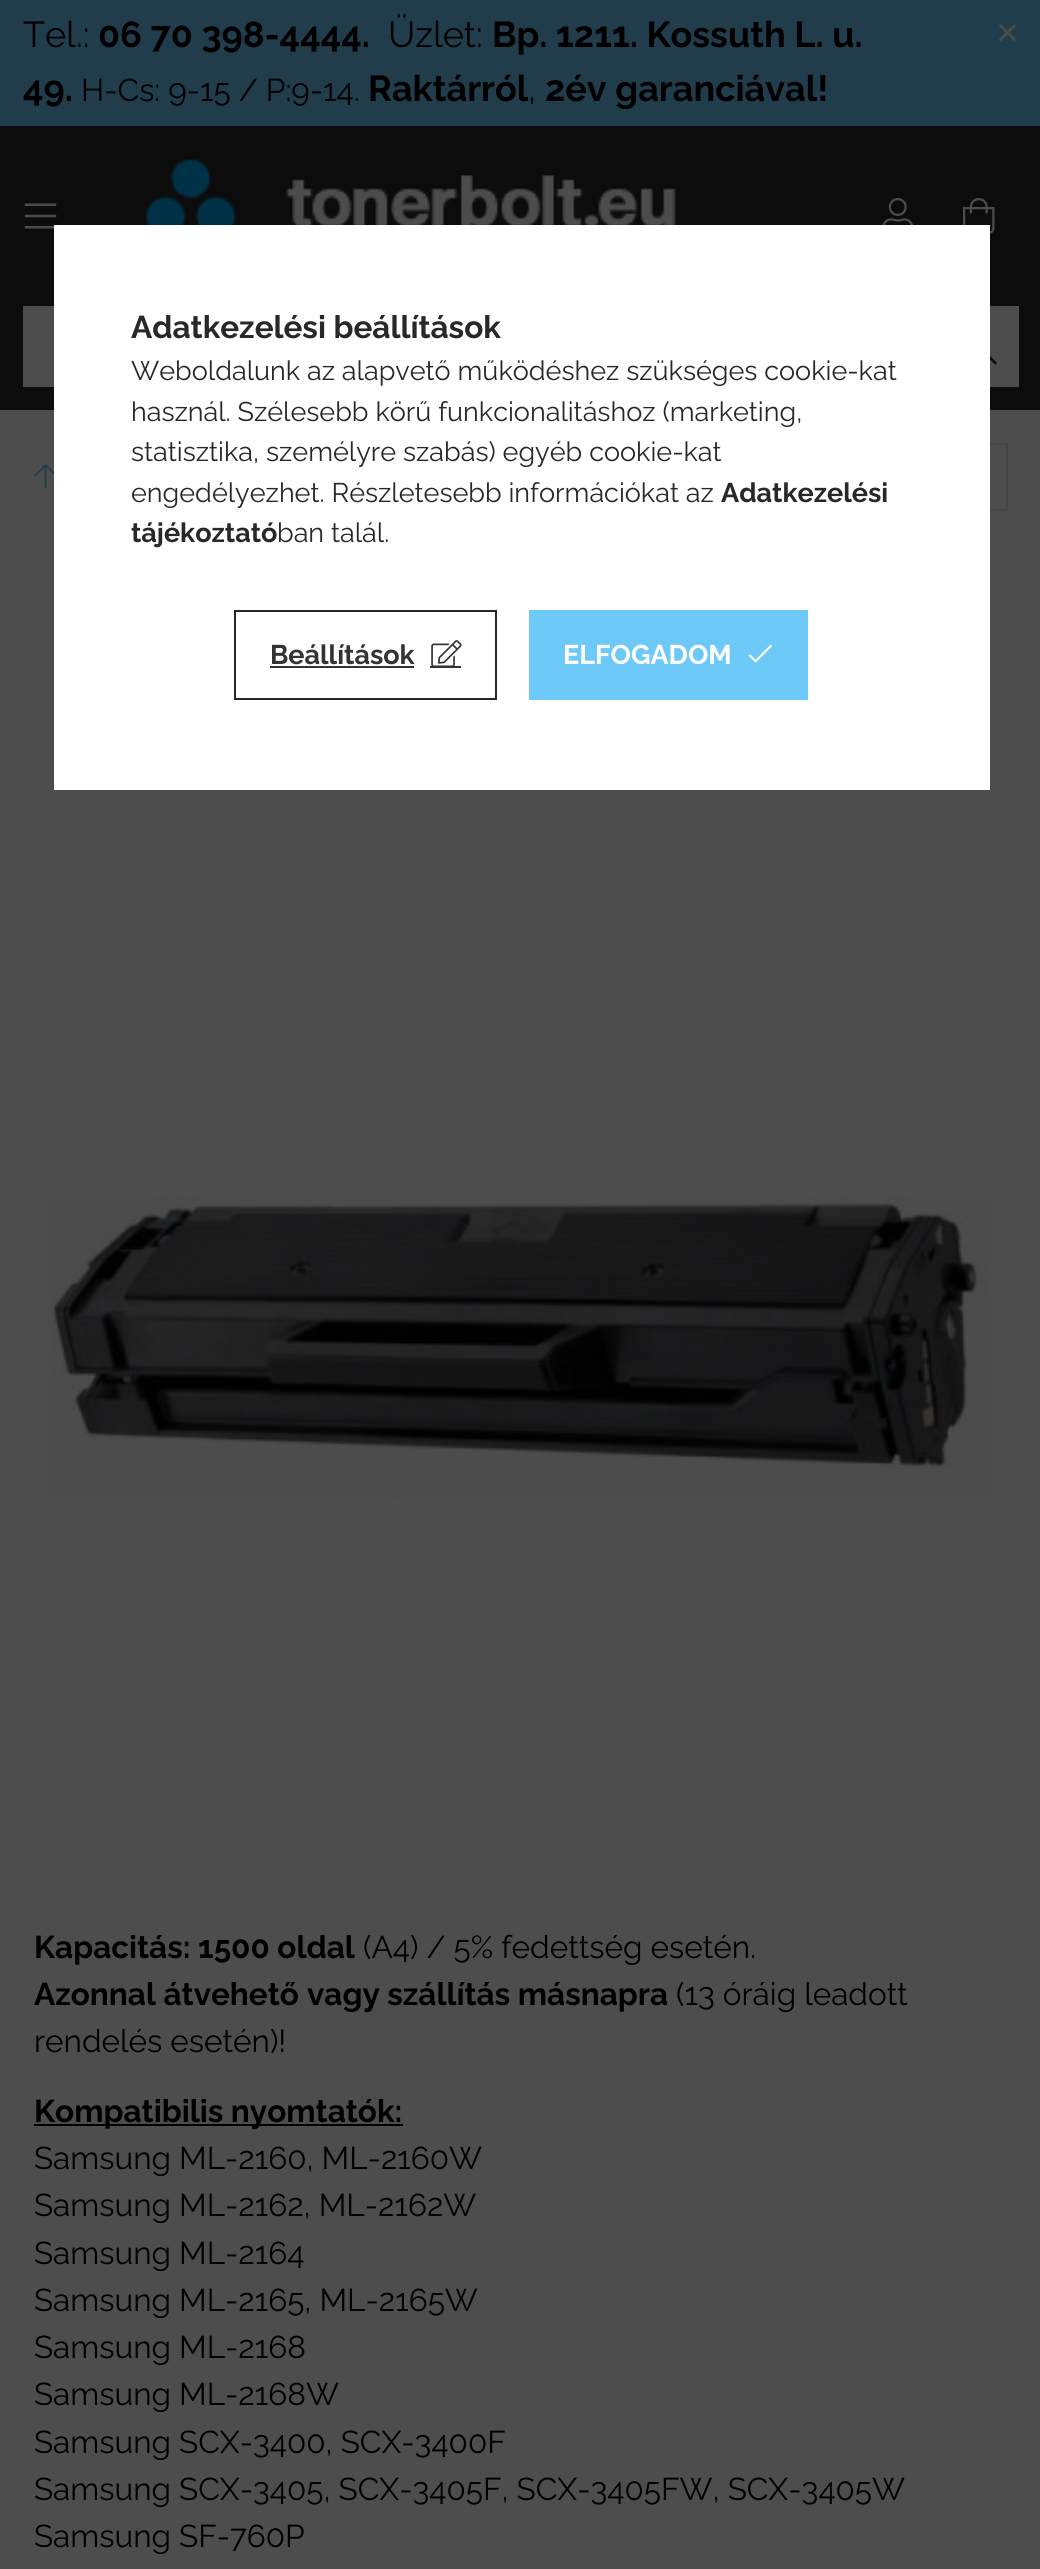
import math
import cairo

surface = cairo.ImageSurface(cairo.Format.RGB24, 1040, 2569)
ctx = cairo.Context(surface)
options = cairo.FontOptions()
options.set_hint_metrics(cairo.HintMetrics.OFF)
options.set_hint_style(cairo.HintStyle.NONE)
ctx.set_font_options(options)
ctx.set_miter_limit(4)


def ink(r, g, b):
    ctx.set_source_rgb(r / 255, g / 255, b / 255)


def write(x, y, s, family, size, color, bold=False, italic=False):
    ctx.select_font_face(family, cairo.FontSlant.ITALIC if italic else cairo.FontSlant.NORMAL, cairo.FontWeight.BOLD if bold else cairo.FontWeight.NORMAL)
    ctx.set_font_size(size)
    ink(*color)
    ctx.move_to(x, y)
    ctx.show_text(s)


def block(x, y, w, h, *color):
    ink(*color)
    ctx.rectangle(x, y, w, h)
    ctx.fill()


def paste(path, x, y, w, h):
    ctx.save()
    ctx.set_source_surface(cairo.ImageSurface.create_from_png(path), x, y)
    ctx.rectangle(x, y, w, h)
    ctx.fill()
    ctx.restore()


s1 = dict(family="Raleway", size=36, color=(0, 0, 0))
s2 = dict(family="Raleway", size=36, color=(0, 0, 0), bold=True)
s3 = dict(family="Raleway", size=31.5, color=(0, 0, 0))
s4 = dict(family="Raleway", size=31.5, color=(0, 0, 0), bold=True)
s5 = dict(family="Raleway", size=31.5, color=(40, 40, 40), bold=True)
s6 = dict(family="Raleway", size=27, color=(40, 40, 40))
s7 = dict(family="Raleway", size=27, color=(40, 40, 40), bold=True)
s8 = dict(family="Raleway", size=27, color=(51, 51, 51), bold=True)
s9 = dict(family="Raleway", size=27, color=(255, 255, 255), bold=True)

ink(77, 77, 77)
ctx.paint()
block(0, 0, 1040, 126, 33, 60, 74)
write(23, 47, "Tel.:", **s1)
write(98, 47, "06 70 398-4444.", **s2)
write(388, 47, "Üzlet:", **s1)
write(492, 47, "Bp. 1211. Kossuth L. u.", **s2)
write(23, 101, "49.", **s2)
write(81, 101, "H-Cs: 9-15 / P:9-14.", **s3)
write(368, 101, "Raktárról", **s2)
write(528, 101, ",", **s1)
write(545, 101, "2év garanciával!", **s2)
paste("pic1.png", 999, 24, 17, 17)
block(0, 126, 1040, 284, 12, 12, 12)
paste("pic2.png", 24, 203, 33, 26)
paste("pic3.png", 145, 159, 531, 66)
paste("pic4.png", 882, 198, 31, 27)
paste("pic5.png", 963, 198, 32, 36)
block(23, 306, 996, 81, 77, 77, 77)
paste("pic6.png", 990, 343, 7, 22)
paste("pic7.png", 33, 464, 21, 24)
ctx.rectangle(942, 444, 65, 66)
ink(70, 70, 70)
ctx.stroke()
paste("pic8.png", 50, 1196, 939, 302)
write(34, 1958, "Kapacitás: 1500 oldal", **s4)
write(363, 1958, "(A4) / 5% fedettség esetén.", **s3)
write(34, 2005, "Azonnal átvehető", **s4)
write(307, 2005, "vagy szállítás másnapra", **s4)
write(676, 2005, "(13 óráig leadott", **s3)
write(34, 2052, "rendelés esetén)!", **s3)
block(34, 2124, 369, 2, 0, 0, 0)
write(34, 2122, "Kompatibilis nyomtatók:", **s4)
write(34, 2169, "Samsung ML-2160, ML-2160W", **s3)
write(34, 2216, "Samsung ML-2162, ML-2162W", **s3)
write(34, 2264, "Samsung ML-2164", **s3)
write(34, 2311, "Samsung ML-2165, ML-2165W", **s3)
write(34, 2358, "Samsung ML-2168", **s3)
write(34, 2405, "Samsung ML-2168W", **s3)
write(34, 2453, "Samsung SCX-3400, SCX-3400F", **s3)
write(34, 2500, "Samsung SCX-3405, SCX-3405F, SCX-3405FW, SCX-3405W", **s3)
write(34, 2547, "Samsung SF-760P", **s3)
block(54, 225, 936, 565, 255, 255, 255)
write(131, 338, "Adatkezelési beállítások", **s5)
write(131, 380, "Weboldalunk az alapvető működéshez szükséges cookie-kat", **s6)
write(131, 421, "használ. Szélesebb körű funkcionalitáshoz (marketing,", **s6)
write(131, 461, "statisztika, személyre szabás) egyéb cookie-kat", **s6)
write(131, 502, "engedélyezhet. Részletesebb információkat az", **s6)
write(721, 502, "Adatkezelési", **s7)
write(131, 542, "tájékoztató", **s7)
write(277, 542, "ban talál.", **s6)
ctx.rectangle(235, 611, 261, 88)
ctx.stroke()
write(270, 664, "Beállítások", **s8)
block(270, 666, 144, 2, 51, 51, 51)
paste("pic9.png", 431, 640, 31, 26)
block(430, 666, 31, 2, 51, 51, 51)
block(529, 610, 279, 90, 109, 201, 247)
write(563, 664, "ELFOGADOM", **s9)
paste("pic10.png", 748, 644, 24, 19)
surface.write_to_png("screenshot.png")
